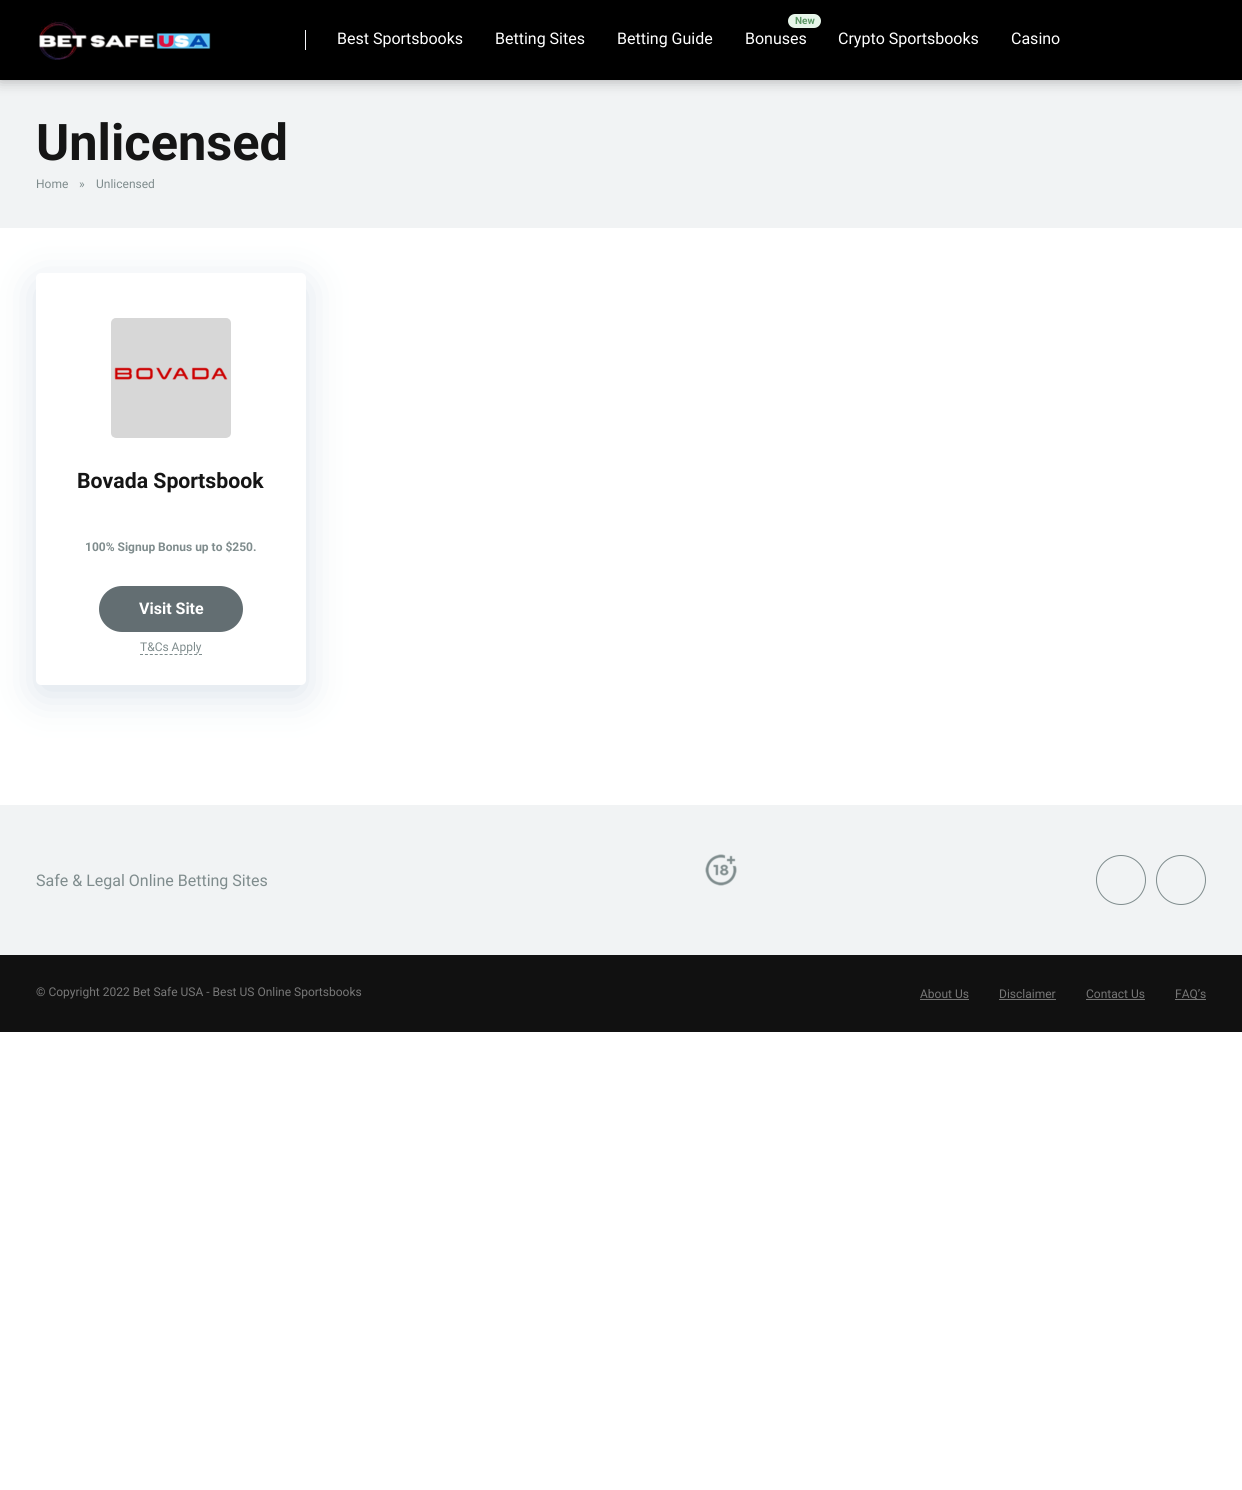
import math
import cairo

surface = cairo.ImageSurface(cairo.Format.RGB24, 1242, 1490)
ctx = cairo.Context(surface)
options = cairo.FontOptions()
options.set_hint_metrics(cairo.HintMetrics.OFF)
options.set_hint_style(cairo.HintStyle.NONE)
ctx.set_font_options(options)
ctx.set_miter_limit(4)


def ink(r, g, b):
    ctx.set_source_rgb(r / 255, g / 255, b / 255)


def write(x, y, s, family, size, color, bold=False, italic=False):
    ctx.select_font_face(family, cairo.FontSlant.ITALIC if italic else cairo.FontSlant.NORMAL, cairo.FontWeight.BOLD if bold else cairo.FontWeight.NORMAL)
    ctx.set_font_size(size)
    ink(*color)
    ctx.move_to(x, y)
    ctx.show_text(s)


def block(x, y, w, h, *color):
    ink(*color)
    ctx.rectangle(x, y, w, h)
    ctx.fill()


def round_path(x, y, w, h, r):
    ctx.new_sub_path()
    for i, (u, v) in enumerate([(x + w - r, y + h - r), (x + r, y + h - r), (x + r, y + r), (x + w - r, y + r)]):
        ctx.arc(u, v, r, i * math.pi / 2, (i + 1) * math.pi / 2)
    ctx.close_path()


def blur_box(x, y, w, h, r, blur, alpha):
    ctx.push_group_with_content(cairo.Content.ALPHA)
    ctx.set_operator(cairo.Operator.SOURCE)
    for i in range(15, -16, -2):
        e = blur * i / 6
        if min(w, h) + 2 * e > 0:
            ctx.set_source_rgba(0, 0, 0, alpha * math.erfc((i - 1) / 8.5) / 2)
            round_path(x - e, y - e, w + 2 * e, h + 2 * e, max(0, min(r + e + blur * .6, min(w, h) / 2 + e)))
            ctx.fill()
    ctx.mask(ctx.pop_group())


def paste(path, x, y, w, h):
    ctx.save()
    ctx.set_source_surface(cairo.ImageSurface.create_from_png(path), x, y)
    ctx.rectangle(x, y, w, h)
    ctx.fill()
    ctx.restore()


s1 = dict(family="Roboto", size=16, color=(255, 255, 255))
s2 = dict(family="Roboto", size=10, color=(91, 151, 101), bold=True)
s3 = dict(family="Roboto", size=50.5, color=(21, 21, 21), bold=True)
s4 = dict(family="Roboto", size=12, color=(127, 140, 141))
s5 = dict(family="Roboto", size=21.25, color=(21, 21, 21), bold=True)
s6 = dict(family="Roboto", size=12, color=(127, 140, 141), bold=True)
s7 = dict(family="Roboto", size=16, color=(255, 255, 255), bold=True)
s8 = dict(family="Roboto", size=16, color=(127, 140, 141))
s9 = dict(family="Roboto", size=12, color=(119, 119, 119))

ink(255, 255, 255)
ctx.paint()
block(0, 80, 1242, 148, 241, 243, 244)
ink(0, 0, 0)
blur_box(0, 0, 1242, 80, 0, 7.5, 0.3)
block(0, 0, 1242, 80, 0, 0, 0)
paste("pic1.png", 39, 20, 172, 40)
block(305, 30, 1, 20, 245, 246, 250)
write(337, 44, "Best Sportsbooks", **s1)
write(495, 44, "Betting Sites", **s1)
write(617, 44, "Betting Guide", **s1)
ink(230, 245, 233)
round_path(788, 14, 33, 14, 7)
ctx.fill()
write(795, 24, "New", **s2)
write(745, 44, "Bonuses", **s1)
write(838, 44, "Crypto Sportsbooks", **s1)
write(1011, 44, "Casino", **s1)
write(36, 160, "Unlicensed", **s3)
write(36, 188, "Home", **s4)
write(79, 188, "»", **s4)
write(96, 188, "Unlicensed", **s4)
ink(109, 141, 173)
blur_box(36, 283, 270, 412, 5, 20, 0.25)
ink(255, 255, 255)
round_path(36, 273, 270, 412, 5)
ctx.fill()
paste("pic2.png", 111, 318, 120, 120)
write(77, 488, "Bovada Sportsbook", **s5)
write(85, 551, "100% Signup Bonus up to $250.", **s6)
ink(99, 110, 114)
round_path(99, 586, 144, 46, 23)
ctx.fill()
write(139, 614, "Visit Site", **s7)
write(140, 651, "T&Cs Apply", **s4)
ctx.new_path()
ctx.move_to(140, 654.5)
ctx.line_to(202, 654.5)
ctx.set_line_width(1)
ctx.set_dash([3, 1.92])
ctx.stroke()
block(0, 805, 1242, 150, 241, 243, 244)
write(36, 886, "Safe & Legal Online Betting Sites", **s8)
paste("pic3.png", 705, 854, 32, 32)
ctx.arc(1121, 880, 24.5, 0, 2 * math.pi)
ctx.set_dash([])
ctx.stroke()
ctx.arc(1181, 880, 24.5, 0, 2 * math.pi)
ctx.stroke()
block(0, 955, 1242, 77, 17, 17, 17)
write(36, 996, "© Copyright 2022 Bet Safe USA - Best US Online Sportsbooks", **s9)
write(920, 998, "About Us", **s9)
block(920, 999, 49, 1, 119, 119, 119)
write(999, 998, "Disclaimer", **s9)
block(999, 999, 57, 1, 119, 119, 119)
write(1086, 998, "Contact Us", **s9)
block(1086, 999, 59, 1, 119, 119, 119)
block(1175, 999, 31, 1, 119, 119, 119)
write(1175, 998, "FAQ’s", **s9)
surface.write_to_png("screenshot.png")
